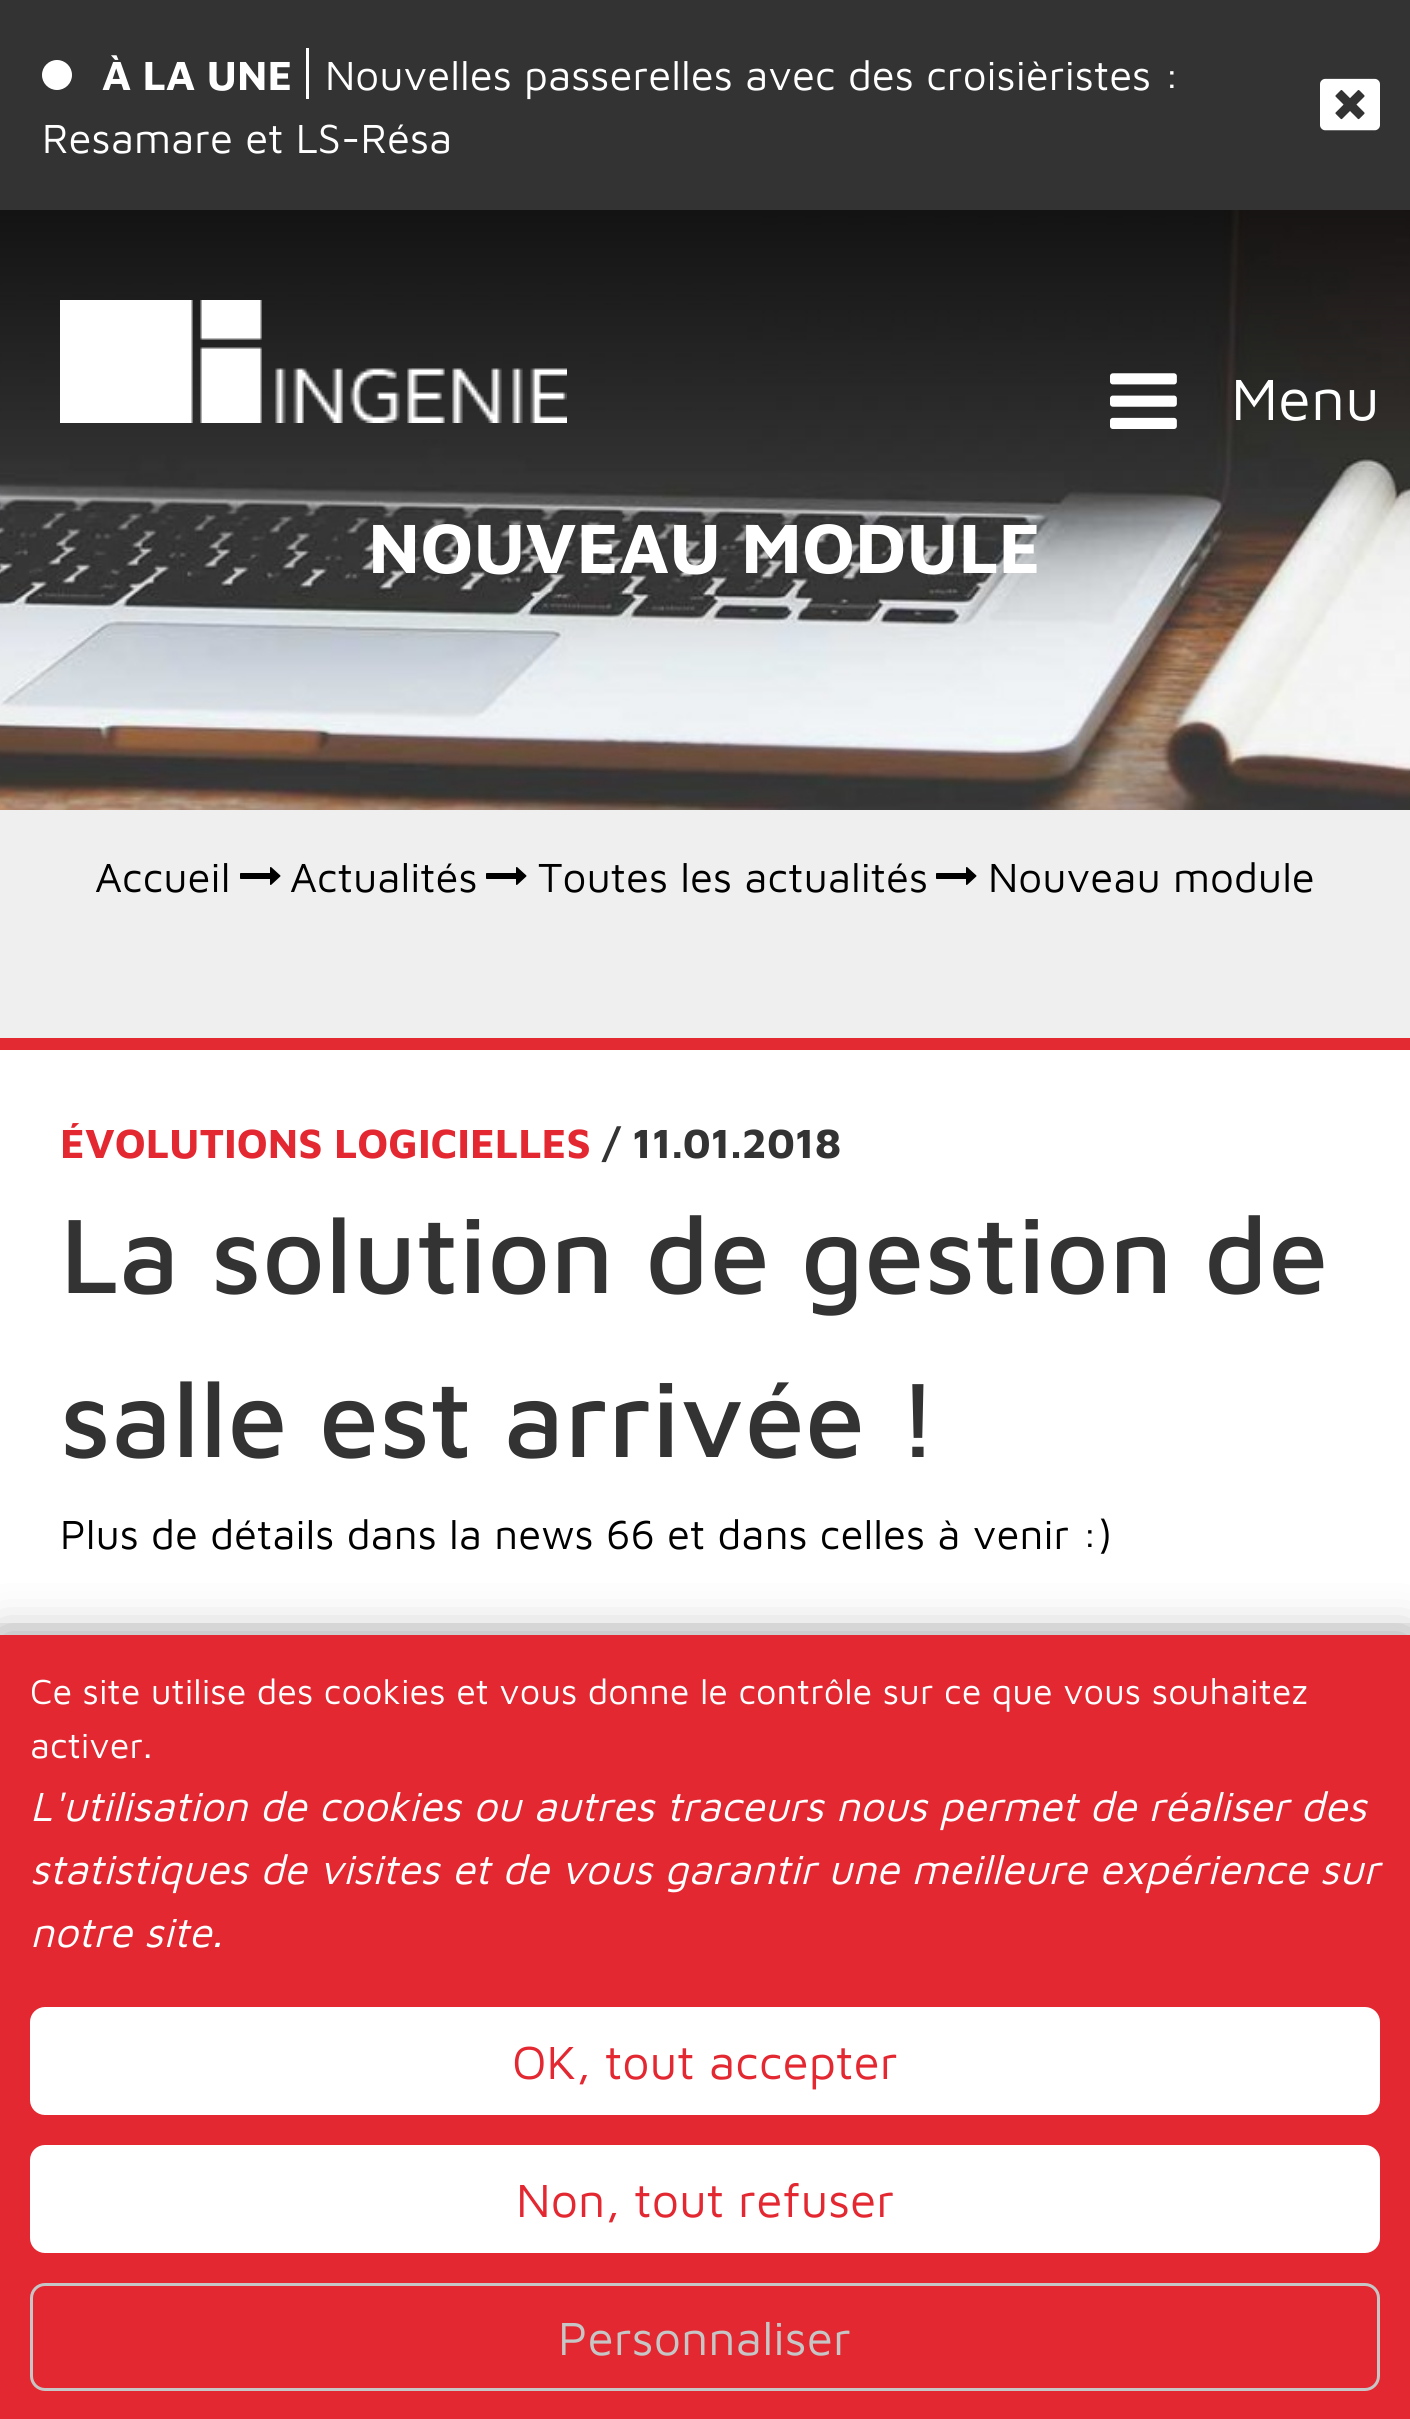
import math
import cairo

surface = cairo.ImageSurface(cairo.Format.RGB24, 1410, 2419)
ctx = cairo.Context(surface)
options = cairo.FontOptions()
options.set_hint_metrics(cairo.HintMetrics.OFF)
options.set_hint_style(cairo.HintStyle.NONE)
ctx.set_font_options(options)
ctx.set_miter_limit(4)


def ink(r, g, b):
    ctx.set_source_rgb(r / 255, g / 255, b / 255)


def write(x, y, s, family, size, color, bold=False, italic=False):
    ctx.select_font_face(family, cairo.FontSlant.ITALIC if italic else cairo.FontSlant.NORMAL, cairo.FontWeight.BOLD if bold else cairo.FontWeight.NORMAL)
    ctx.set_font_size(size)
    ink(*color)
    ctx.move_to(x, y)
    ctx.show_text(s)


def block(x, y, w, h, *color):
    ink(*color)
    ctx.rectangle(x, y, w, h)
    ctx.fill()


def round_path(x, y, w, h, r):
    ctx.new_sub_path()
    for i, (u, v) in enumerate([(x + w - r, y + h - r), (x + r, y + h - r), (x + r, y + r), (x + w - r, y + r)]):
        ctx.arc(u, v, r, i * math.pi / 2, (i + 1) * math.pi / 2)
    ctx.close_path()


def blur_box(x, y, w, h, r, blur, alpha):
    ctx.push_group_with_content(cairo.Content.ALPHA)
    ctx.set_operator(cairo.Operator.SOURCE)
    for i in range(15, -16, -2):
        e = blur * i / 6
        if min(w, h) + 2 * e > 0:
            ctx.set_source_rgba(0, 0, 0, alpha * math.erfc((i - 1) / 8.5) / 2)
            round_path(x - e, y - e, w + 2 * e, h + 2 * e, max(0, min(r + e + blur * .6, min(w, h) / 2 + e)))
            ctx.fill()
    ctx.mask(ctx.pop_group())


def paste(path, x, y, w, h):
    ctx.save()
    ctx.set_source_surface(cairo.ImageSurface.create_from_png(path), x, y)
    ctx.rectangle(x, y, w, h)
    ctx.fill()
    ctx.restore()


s1 = dict(family="Maven Pro", size=42, color=(255, 255, 255), bold=True)
s2 = dict(family="Maven Pro", size=42, color=(255, 255, 255))
s3 = dict(family="Maven Pro", size=60, color=(255, 255, 255))
s4 = dict(family="Maven Pro", size=72, color=(255, 255, 255), bold=True)
s5 = dict(family="Maven Pro", size=42, color=(227, 40, 49), bold=True)
s6 = dict(family="Maven Pro", size=42, color=(51, 51, 51), bold=True)
s7 = dict(family="Maven Pro Medium", size=109.25, color=(51, 51, 51))
s8 = dict(family="Maven Pro", size=42, color=(0, 0, 0))
s9 = dict(family="Maven Pro", size=36, color=(255, 255, 255))
s10 = dict(family="Maven Pro", size=42, color=(255, 255, 255), italic=True)
s11 = dict(family="Maven Pro", size=48, color=(227, 40, 49))
s12 = dict(family="Maven Pro", size=48, color=(198, 198, 198))

ink(239, 239, 239)
ctx.paint()
block(0, 0, 1410, 210, 51, 51, 51)
block(306, 48, 3, 51, 255, 255, 255)
ctx.arc(57, 75, 15, 0, 2 * math.pi)
ctx.fill()
write(102, 90, "À LA UNE", **s1)
write(325, 90, "Nouvelles passerelles avec des croisièristes :", **s2)
paste("pic1.png", 1320, 78, 60, 53)
write(42, 153, "Resamare et LS-Résa", **s2)
paste("pic2.png", 0, 210, 1410, 600)
paste("pic3.png", 60, 300, 507, 123)
paste("pic4.png", 1110, 373, 67, 56)
write(1231, 420, "Menu", **s3)
write(368, 573, "NOUVEAU MODULE", **s4)
block(0, 1050, 1410, 573, 255, 255, 255)
block(0, 1038, 1410, 12, 227, 42, 51)
write(60, 1158, "ÉVOLUTIONS LOGICIELLES", **s5)
write(602, 1158, "/ 11.01.2018", **s6)
write(60, 1293, "La solution de gestion de", **s7)
write(60, 1457, "salle est arrivée !", **s7)
write(60, 1549, "Plus de détails dans la news 66 et dans celles à venir :)", **s8)
write(95, 892, "Accueil", **s8)
paste("pic5.png", 240, 867, 41, 18)
write(290, 892, "Actualités", **s8)
paste("pic5.png", 486, 867, 41, 18)
write(538, 892, "Toutes les actualités", **s8)
paste("pic5.png", 936, 867, 41, 18)
write(988, 892, "Nouveau module", **s8)
ink(51, 51, 51)
blur_box(0, 1635, 1410, 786, 0, 24, 0.36)
block(0, 1635, 1410, 784, 227, 40, 49)
write(30, 1704, "Ce site utilise des cookies et vous donne le contrôle sur ce que vous souhaitez", **s9)
write(30, 1758, "activer.", **s9)
write(30, 1821, "L'utilisation de cookies ou autres traceurs nous permet de réaliser des", **s10)
write(30, 1884, "statistiques de visites et de vous garantir une meilleure expérience sur", **s10)
write(30, 1947, "notre site.", **s10)
round_path(31.5, 2008.5, 1347, 105, 13.5)
ctx.fill_preserve()
ctx.set_line_width(3)
ctx.stroke()
write(512, 2079, "OK, tout accepter", **s11)
ink(255, 255, 255)
round_path(31.5, 2146.5, 1347, 105, 13.5)
ctx.fill_preserve()
ctx.stroke()
write(516, 2217, "Non, tout refuser", **s11)
round_path(31.5, 2284.5, 1347, 105, 13.5)
ink(198, 198, 198)
ctx.stroke()
write(558, 2355, "Personnaliser", **s12)
surface.write_to_png("screenshot.png")
